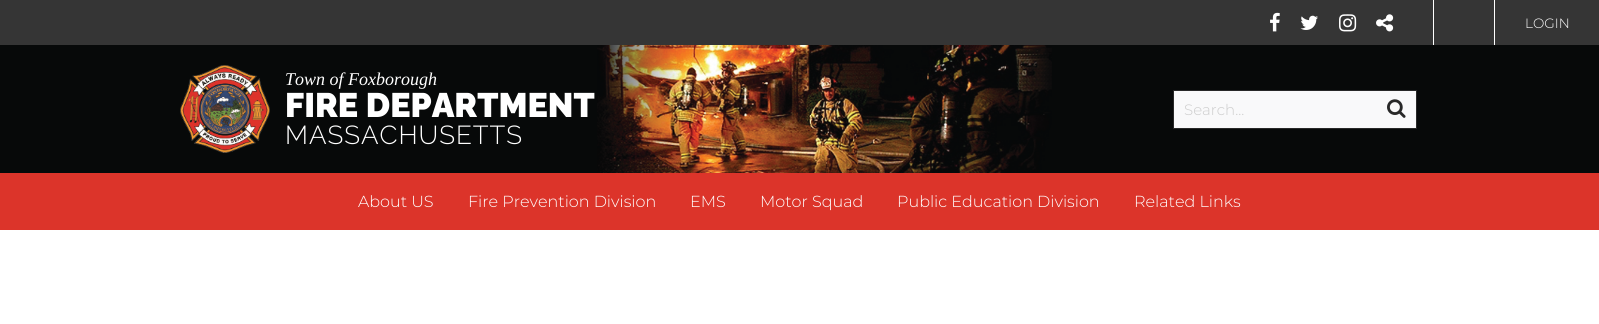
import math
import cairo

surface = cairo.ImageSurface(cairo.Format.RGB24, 1599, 324)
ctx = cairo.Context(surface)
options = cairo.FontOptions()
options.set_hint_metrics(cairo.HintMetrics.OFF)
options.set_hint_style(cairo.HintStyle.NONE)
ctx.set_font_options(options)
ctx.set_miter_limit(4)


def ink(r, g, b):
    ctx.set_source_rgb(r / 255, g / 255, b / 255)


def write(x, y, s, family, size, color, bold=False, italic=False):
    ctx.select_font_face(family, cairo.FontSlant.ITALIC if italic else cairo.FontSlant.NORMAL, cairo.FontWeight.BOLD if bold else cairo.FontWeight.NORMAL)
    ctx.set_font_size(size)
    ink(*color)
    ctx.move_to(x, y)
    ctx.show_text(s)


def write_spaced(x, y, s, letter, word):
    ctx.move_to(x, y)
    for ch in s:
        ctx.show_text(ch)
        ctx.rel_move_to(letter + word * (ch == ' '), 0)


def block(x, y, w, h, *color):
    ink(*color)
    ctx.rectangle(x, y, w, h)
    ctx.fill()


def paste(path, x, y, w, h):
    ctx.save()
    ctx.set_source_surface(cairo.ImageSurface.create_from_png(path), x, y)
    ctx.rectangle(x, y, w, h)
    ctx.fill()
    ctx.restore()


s1 = dict(family="Montserrat Light", size=13.5, color=(255, 255, 255))
s2 = dict(family="Liberation Serif", size=18, color=(255, 255, 255), italic=True)
s3 = dict(family="Raleway Black", size=34, color=(255, 255, 255))
s4 = dict(family="Montserrat Light", size=15, color=(204, 204, 204))
s5 = dict(family="Montserrat Light", size=16, color=(255, 255, 255))

ink(255, 255, 255)
ctx.paint()
block(0, 0, 1599, 45, 53, 53, 53)
paste("pic1.png", 1270, 12, 10, 20)
paste("pic2.png", 1300, 15, 18, 15)
paste("pic3.png", 1339, 14, 18, 18)
paste("pic4.png", 1376, 14, 18, 18)
block(1433, 0, 1, 45, 255, 255, 255)
block(1494, 0, 1, 45, 255, 255, 255)
write(1525, 28, "LOGIN", **s1)
block(0, 45, 1599, 128, 7, 9, 9)
paste("pic5.png", 597, 45, 455, 128)
paste("pic6.png", 180, 65, 90, 88)
write(285, 85, "Town of Foxborough", **s2)
write(285, 117, "FIRE DEPARTMENT", **s3)
ctx.select_font_face("Raleway Light")
ctx.set_font_size(26)
write_spaced(285, 144, "MASSACHUSETTS", 1, 0)
ink(249, 249, 250)
ctx.rectangle(1173.5, 90.5, 243, 38)
ctx.fill_preserve()
ink(40, 40, 40)
ctx.set_line_width(1)
ctx.stroke()
write(1184, 115, "Search...", **s4)
paste("pic7.png", 1387, 99, 19, 19)
block(0, 173, 1599, 57, 220, 52, 42)
write(358, 207, "About US", **s5)
write(468, 207, "Fire Prevention Division", **s5)
write(690, 207, "EMS", **s5)
write(760, 207, "Motor Squad", **s5)
write(897, 207, "Public Education Division", **s5)
write(1134, 207, "Related Links", **s5)
surface.write_to_png("screenshot.png")
